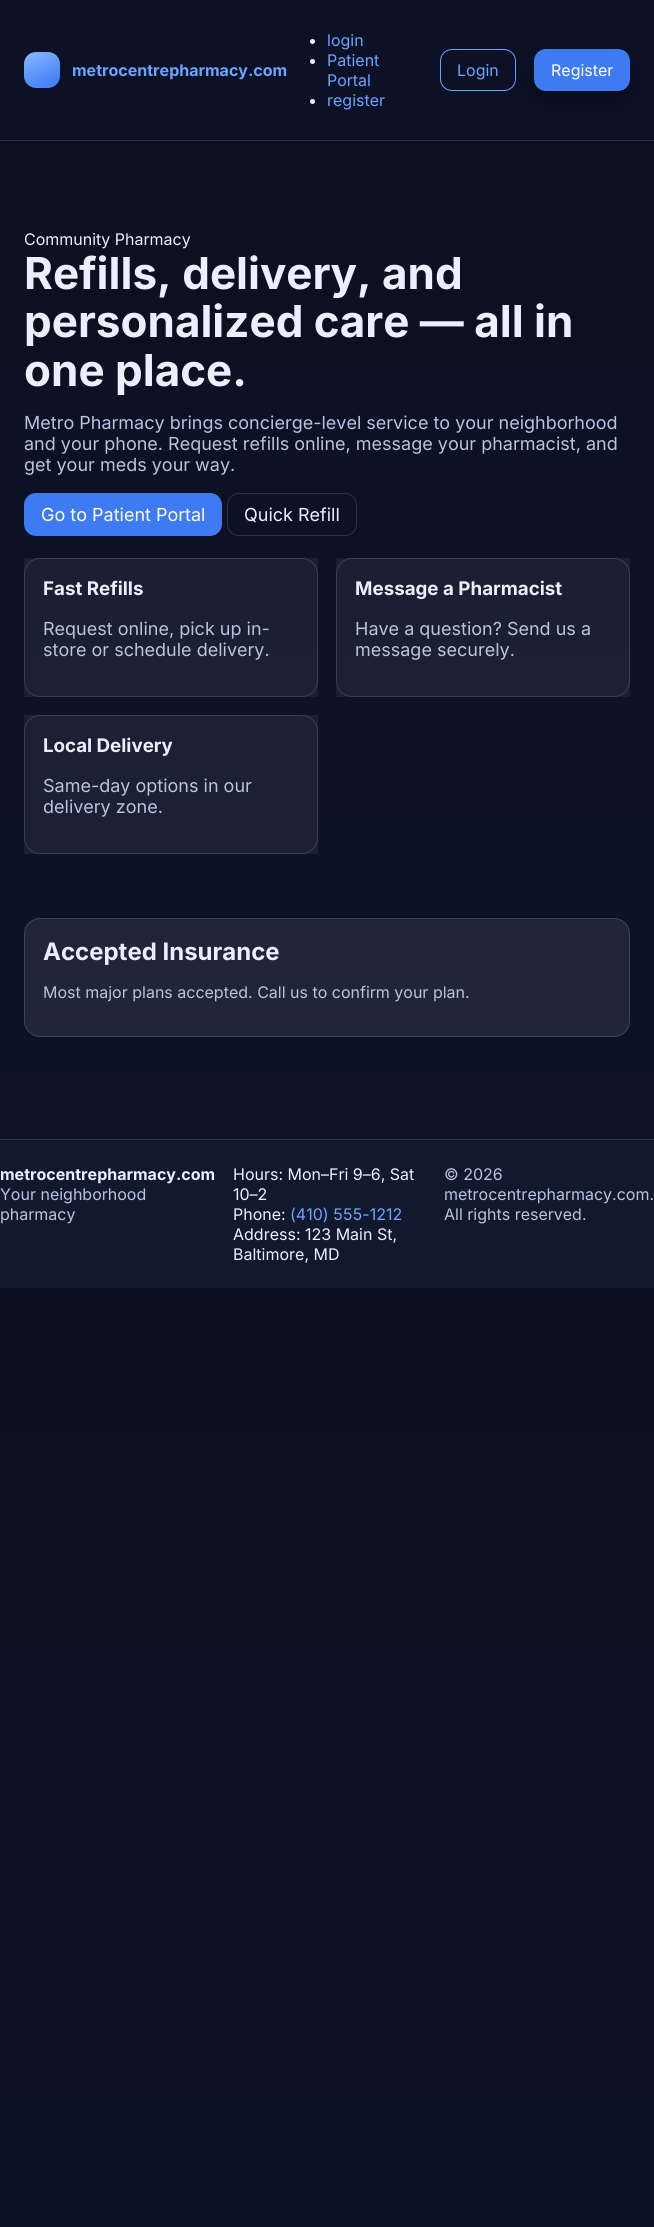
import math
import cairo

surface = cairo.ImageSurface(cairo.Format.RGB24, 654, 2227)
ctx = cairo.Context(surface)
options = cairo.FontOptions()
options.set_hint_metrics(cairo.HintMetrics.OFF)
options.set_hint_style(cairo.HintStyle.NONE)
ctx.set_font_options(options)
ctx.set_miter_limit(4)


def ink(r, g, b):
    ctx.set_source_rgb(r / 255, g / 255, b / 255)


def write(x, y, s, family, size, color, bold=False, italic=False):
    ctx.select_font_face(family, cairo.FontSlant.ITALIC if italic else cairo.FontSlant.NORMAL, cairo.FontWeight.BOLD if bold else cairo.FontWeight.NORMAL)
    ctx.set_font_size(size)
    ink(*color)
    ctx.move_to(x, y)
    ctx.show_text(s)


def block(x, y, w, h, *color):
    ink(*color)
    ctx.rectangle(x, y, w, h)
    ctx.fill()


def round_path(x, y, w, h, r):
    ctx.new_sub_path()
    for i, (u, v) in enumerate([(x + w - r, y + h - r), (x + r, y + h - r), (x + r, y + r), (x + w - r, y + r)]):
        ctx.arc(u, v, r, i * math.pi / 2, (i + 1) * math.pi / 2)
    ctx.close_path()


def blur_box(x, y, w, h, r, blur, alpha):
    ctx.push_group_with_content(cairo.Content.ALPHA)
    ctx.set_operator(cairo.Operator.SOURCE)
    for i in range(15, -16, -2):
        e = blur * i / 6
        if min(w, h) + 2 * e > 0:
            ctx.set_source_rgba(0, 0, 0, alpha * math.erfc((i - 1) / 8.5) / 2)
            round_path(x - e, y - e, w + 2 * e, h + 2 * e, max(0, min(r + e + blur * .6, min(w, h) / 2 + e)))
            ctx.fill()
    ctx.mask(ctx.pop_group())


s1 = dict(family="Inter", size=16, color=(106, 165, 255), bold=True)
s2 = dict(family="Inter", size=16, color=(106, 165, 255))
s3 = dict(family="Inter", size=16, color=(255, 255, 255))
s4 = dict(family="Inter", size=16, color=(234, 240, 255))
s5 = dict(family="Inter", size=44, color=(234, 240, 255), bold=True)
s6 = dict(family="Inter", size=18, color=(183, 195, 224))
s7 = dict(family="Inter", size=18, color=(255, 255, 255))
s8 = dict(family="Inter", size=18, color=(234, 240, 255))
s9 = dict(family="Inter", size=18.75, color=(234, 240, 255), bold=True)
s10 = dict(family="Inter", size=24, color=(234, 240, 255), bold=True)
s11 = dict(family="Inter", size=16, color=(183, 195, 224))
s12 = dict(family="Inter", size=16, color=(234, 240, 255), bold=True)

ink(255, 255, 255)
ctx.paint()
gradient = cairo.LinearGradient(327, 0, 327, 1288)
gradient.add_color_stop_rgba(0, 0.043, 0.063, 0.125, 1)
gradient.add_color_stop_rgba(1, 0.055, 0.078, 0.161, 1)
ctx.set_source(gradient)
ctx.rectangle(0, 141, 654, 998)
ctx.fill()
gradient = cairo.LinearGradient(327, 1288, 327, 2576)
gradient.add_color_stop_rgba(0, 0.043, 0.063, 0.125, 1)
gradient.add_color_stop_rgba(1, 0.055, 0.078, 0.161, 1)
ctx.set_source(gradient)
ctx.rectangle(0, 1288, 654, 939)
ctx.fill()
block(0, 0, 654, 140, 12, 17, 38)
block(0, 140, 654, 1, 46, 50, 68)
gradient = cairo.LinearGradient(24, 52, 60, 88)
gradient.add_color_stop_rgba(0, 0.416, 0.647, 1, 1)
gradient.add_color_stop_rgba(1, 0.243, 0.482, 0.949, 1)
ctx.set_source(gradient)
round_path(24, 52, 36, 36, 12)
ctx.fill()
gradient = cairo.RadialGradient(0, 0, 0, 0, 0, 1)
gradient.set_matrix(cairo.Matrix(1 / 180, 0, 0, 1 / 60, -1 * 20 / 180, -1 * 45 / 60))
gradient.add_color_stop_rgba(0, 1, 1, 1, 0.25)
gradient.add_color_stop_rgba(0.6, 1, 1, 1, 0)
ctx.set_source(gradient)
round_path(24, 52, 36, 36, 12)
ctx.fill()
write(72, 76, "metrocentrepharmacy.com", **s1)
ink(234, 240, 255)
ctx.new_path()
ctx.arc(312.5, 41.5, 2.5, 0, 2 * math.pi)
ctx.fill()
write(327, 46, "login", **s2)
ink(234, 240, 255)
ctx.new_path()
ctx.arc(312.5, 61.5, 2.5, 0, 2 * math.pi)
ctx.fill()
write(327, 66, "Patient", **s2)
write(327, 86, "Portal", **s2)
ink(234, 240, 255)
ctx.new_path()
ctx.arc(312.5, 101.5, 2.5, 0, 2 * math.pi)
ctx.fill()
write(327, 106, "register", **s2)
round_path(440.5, 49.5, 75, 41, 11.5)
ctx.set_line_width(1)
ctx.stroke()
write(457, 76, "Login", **s2)
ink(0, 0, 0)
blur_box(534, 59, 96, 42, 12, 17.5, 0.35)
ink(62, 123, 242)
round_path(534, 49, 96, 42, 12)
ctx.fill()
write(551, 76, "Register", **s3)
write(24, 245, "Community Pharmacy", **s4)
write(24, 289, "Refills, delivery, and", **s5)
write(24, 337, "personalized care — all in", **s5)
write(24, 386, "one place.", **s5)
write(24, 429, "Metro Pharmacy brings concierge-level service to your neighborhood", **s6)
write(24, 450, "and your phone. Request refills online, message your pharmacist, and", **s6)
write(24, 471, "get your meds your way.", **s6)
ink(62, 123, 242)
round_path(24, 493, 198, 43, 12)
ctx.fill()
write(41, 521, "Go to Patient Portal", **s7)
round_path(227.5, 493.5, 129, 42, 11.5)
ctx.set_source_rgba(1, 1, 1, 0.14)
ctx.stroke()
write(244, 521, "Quick Refill", **s8)
ctx.set_source_rgba(1, 1, 1, 0.06)
ctx.rectangle(24, 558, 294, 139)
ctx.fill()
round_path(24.5, 558.5, 293, 138, 15.5)
ctx.set_source_rgba(1, 1, 1, 0.14)
ctx.stroke()
write(43, 595, "Fast Refills", **s9)
write(43, 635, "Request online, pick up in-", **s6)
write(43, 656, "store or schedule delivery.", **s6)
ctx.set_source_rgba(1, 1, 1, 0.06)
ctx.rectangle(336, 558, 294, 139)
ctx.fill()
round_path(336.5, 558.5, 293, 138, 15.5)
ctx.set_source_rgba(1, 1, 1, 0.14)
ctx.stroke()
write(355, 595, "Message a Pharmacist", **s9)
write(355, 635, "Have a question? Send us a", **s6)
write(355, 656, "message securely.", **s6)
ctx.set_source_rgba(1, 1, 1, 0.06)
ctx.rectangle(24, 715, 294, 139)
ctx.fill()
round_path(24.5, 715.5, 293, 138, 15.5)
ctx.set_source_rgba(1, 1, 1, 0.14)
ctx.stroke()
write(43, 752, "Local Delivery", **s9)
write(43, 792, "Same-day options in our", **s6)
write(43, 813, "delivery zone.", **s6)
ctx.set_source_rgba(1, 1, 1, 0.08)
round_path(24, 918, 606, 119, 16)
ctx.fill()
round_path(24.5, 918.5, 605, 118, 15.5)
ctx.set_source_rgba(1, 1, 1, 0.14)
ctx.stroke()
write(43, 960, "Accepted Insurance", **s10)
write(43, 998, "Most major plans accepted. Call us to confirm your plan.", **s11)
block(0, 1140, 654, 148, 19, 25, 45)
block(0, 1139, 654, 1, 52, 57, 74)
write(0, 1180, "metrocentrepharmacy.com", **s12)
write(0, 1200, "Your neighborhood", **s11)
write(0, 1220, "pharmacy", **s11)
write(233, 1180, "Hours: Mon–Fri 9–6, Sat", **s4)
write(233, 1200, "10–2", **s4)
write(233, 1220, "Phone:", **s4)
write(290, 1220, "(410) 555-1212", **s2)
write(233, 1240, "Address: 123 Main St,", **s4)
write(233, 1260, "Baltimore, MD", **s4)
write(444, 1180, "© 2026", **s11)
write(444, 1200, "metrocentrepharmacy.com.", **s11)
write(444, 1220, "All rights reserved.", **s11)
surface.write_to_png("screenshot.png")
